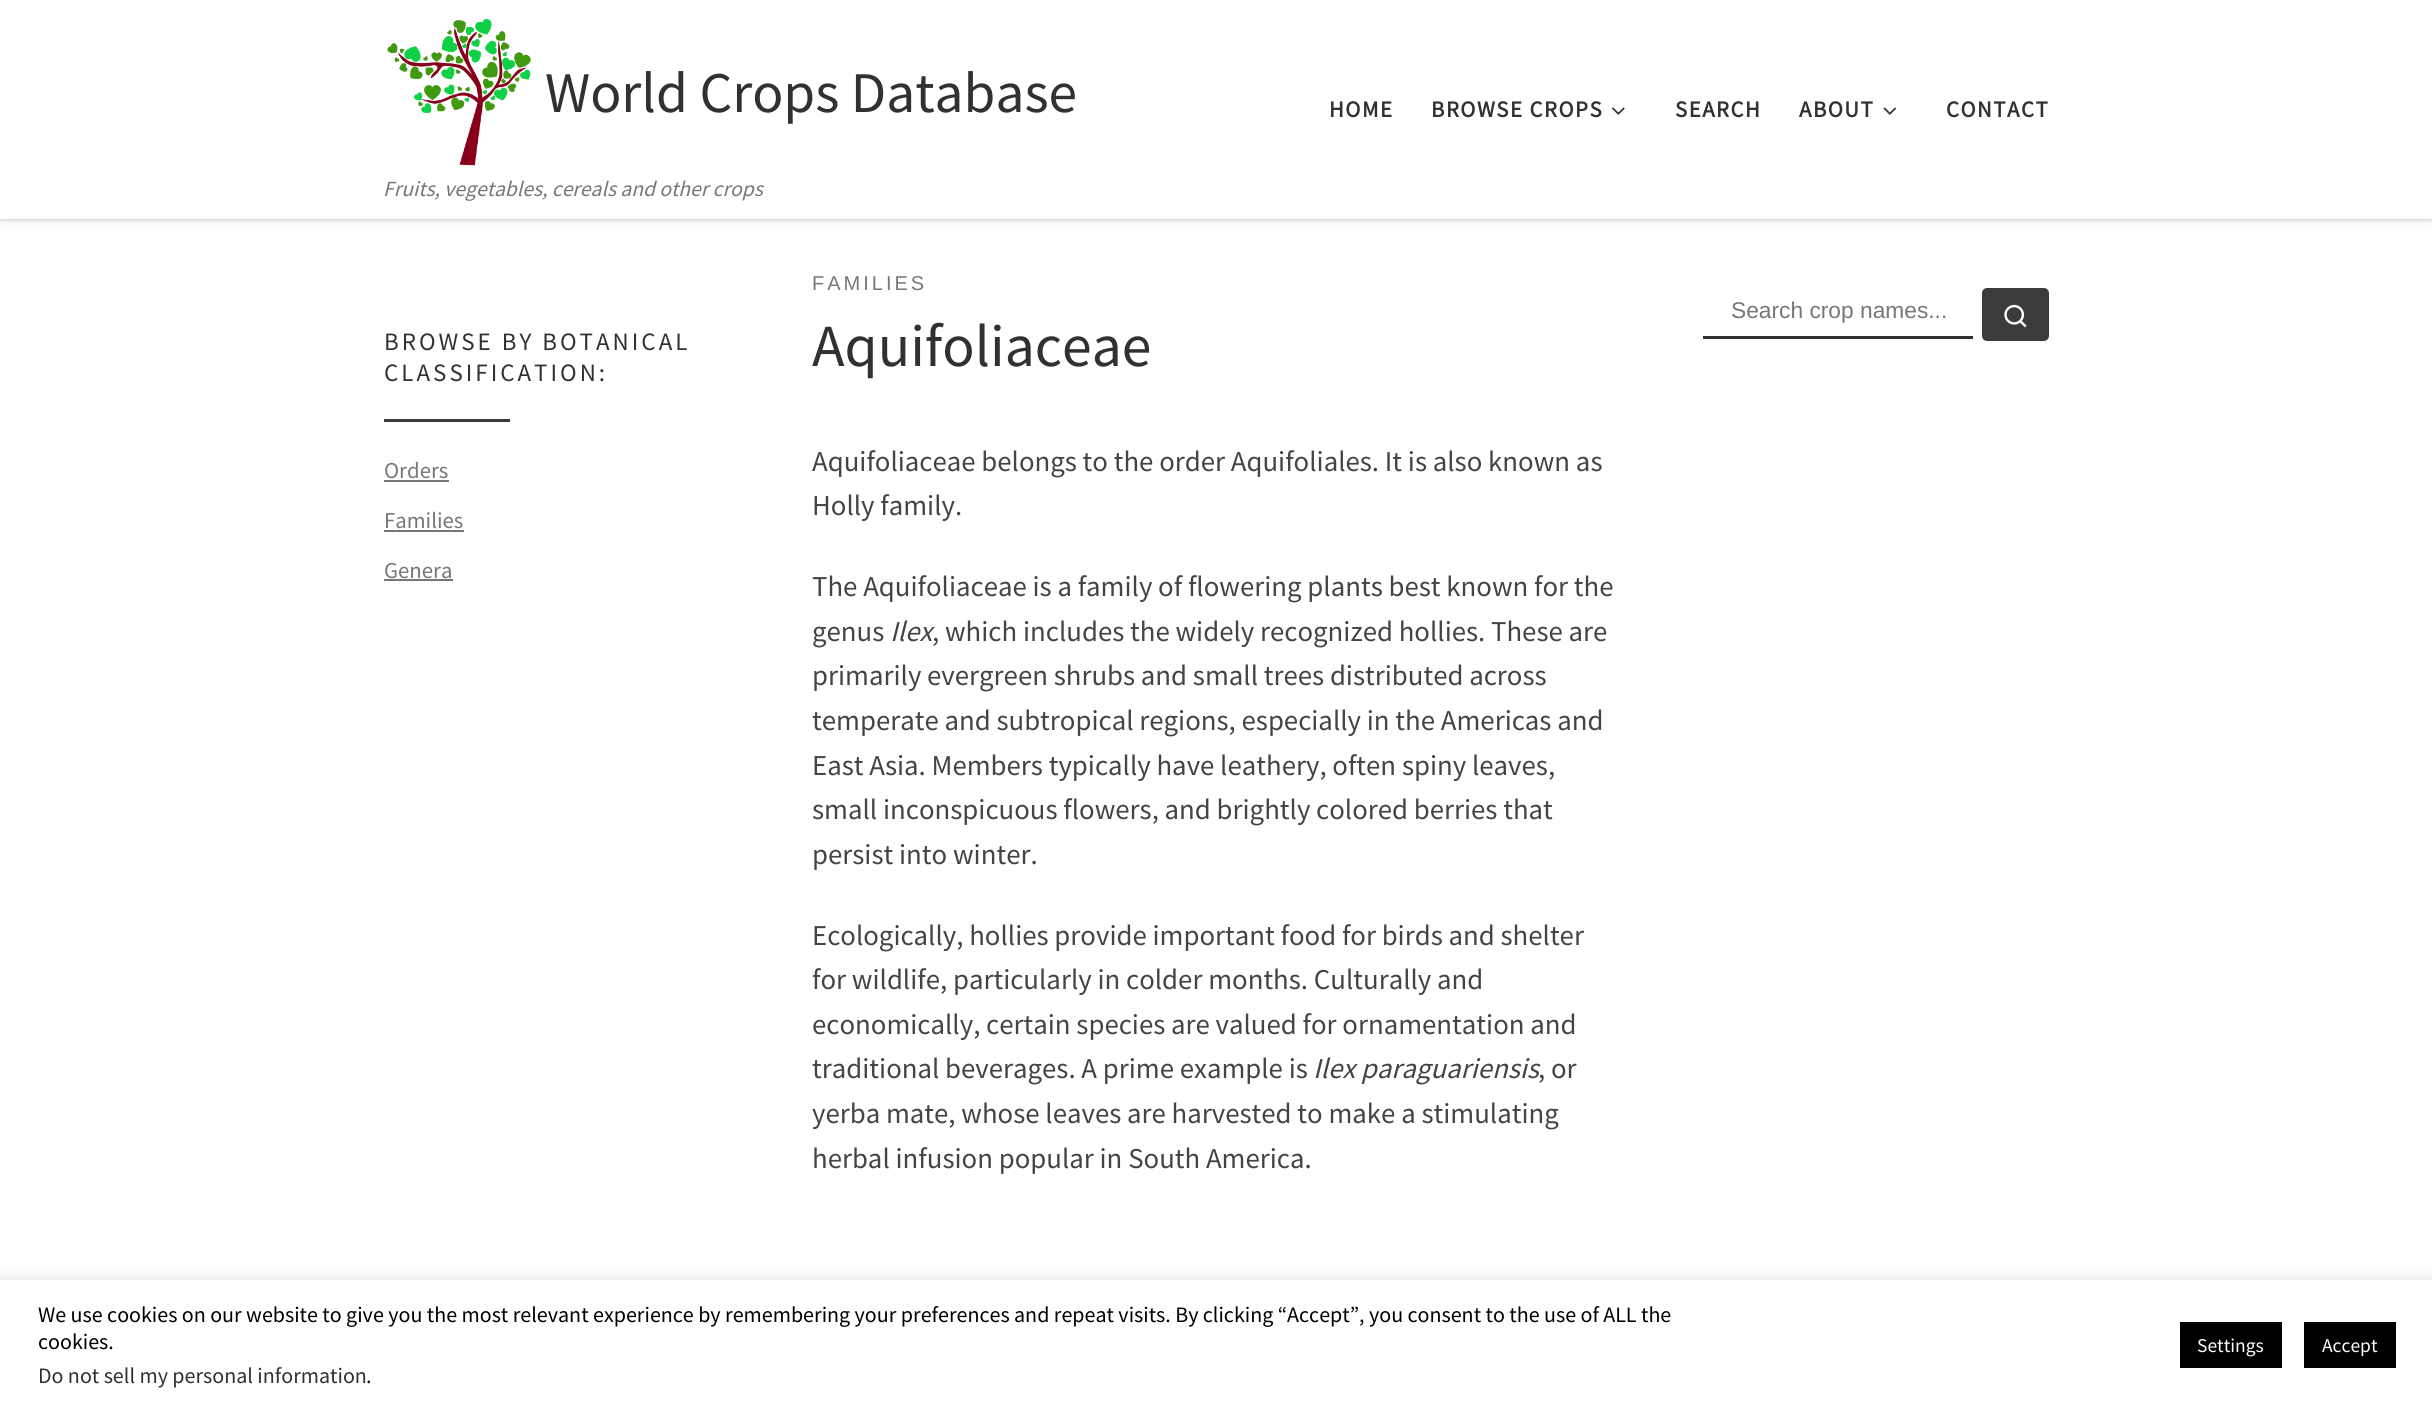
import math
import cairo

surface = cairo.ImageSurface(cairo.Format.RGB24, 2432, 1410)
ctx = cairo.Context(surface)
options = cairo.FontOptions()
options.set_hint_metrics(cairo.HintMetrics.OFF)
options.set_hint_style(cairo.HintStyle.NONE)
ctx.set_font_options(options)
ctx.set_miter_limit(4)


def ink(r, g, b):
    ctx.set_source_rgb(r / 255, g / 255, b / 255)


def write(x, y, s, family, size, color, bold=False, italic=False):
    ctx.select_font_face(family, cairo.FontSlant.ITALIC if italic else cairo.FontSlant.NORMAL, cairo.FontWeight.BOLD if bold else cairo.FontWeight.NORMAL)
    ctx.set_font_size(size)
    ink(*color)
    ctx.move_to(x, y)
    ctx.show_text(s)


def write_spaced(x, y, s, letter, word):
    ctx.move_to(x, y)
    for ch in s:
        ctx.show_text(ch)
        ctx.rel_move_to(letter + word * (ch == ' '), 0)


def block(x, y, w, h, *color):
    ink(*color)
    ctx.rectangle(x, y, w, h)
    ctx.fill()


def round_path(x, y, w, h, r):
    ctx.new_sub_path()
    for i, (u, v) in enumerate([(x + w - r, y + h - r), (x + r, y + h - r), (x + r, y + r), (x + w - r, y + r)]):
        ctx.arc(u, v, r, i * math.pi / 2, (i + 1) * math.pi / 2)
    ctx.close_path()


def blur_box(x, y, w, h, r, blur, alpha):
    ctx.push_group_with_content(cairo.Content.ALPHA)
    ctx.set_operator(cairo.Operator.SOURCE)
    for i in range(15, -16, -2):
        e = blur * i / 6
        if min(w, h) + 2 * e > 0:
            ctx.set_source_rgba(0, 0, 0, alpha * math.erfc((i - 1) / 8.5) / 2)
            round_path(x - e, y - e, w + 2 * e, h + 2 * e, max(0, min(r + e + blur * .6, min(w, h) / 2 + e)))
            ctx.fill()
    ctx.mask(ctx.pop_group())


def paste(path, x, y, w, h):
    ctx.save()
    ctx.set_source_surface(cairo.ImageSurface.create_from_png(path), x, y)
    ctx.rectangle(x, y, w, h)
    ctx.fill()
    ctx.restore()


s1 = dict(family="Source Sans Pro", size=57.5, color=(48, 49, 51))
s2 = dict(family="Source Sans Pro", size=21.6, color=(119, 119, 119), italic=True)
s3 = dict(family="Source Sans Pro", size=59.75, color=(48, 49, 51))
s4 = dict(family="Source Sans Pro", size=28.8, color=(68, 68, 68))
s5 = dict(family="Source Sans Pro", size=28.8, color=(68, 68, 68), italic=True)
s6 = dict(family="Liberation Sans", size=22.75, color=(119, 119, 119))
s7 = dict(family="Source Sans Pro", size=22.75, color=(119, 119, 119))
s8 = dict(family="Source Sans Pro", size=22, color=(0, 0, 0))
s9 = dict(family="Source Sans Pro", size=22, color=(48, 49, 51))
s10 = dict(family="Source Sans Pro", size=19.5, color=(255, 255, 255))

ink(255, 255, 255)
ctx.paint()
ink(102, 102, 102)
blur_box(0, 3, 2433, 218, 0, 1.5, 0.08)
ink(0, 0, 0)
blur_box(0, 0, 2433, 219, 0, 4, 0.2)
block(0, 0, 2432, 219, 255, 255, 255)
paste("pic1.png", 387, 19, 144, 147)
write(545, 112, "World Crops Database", **s1)
write(383, 196, "Fruits, vegetables, cereals and other crops", **s2)
ctx.select_font_face("Source Sans Pro", cairo.FontSlant.NORMAL, cairo.FontWeight.BOLD)
ctx.set_font_size(22.75)
ink(48, 49, 51)
write_spaced(1329, 117, "HOME", 1.5, 0)
write_spaced(1431, 117, "BROWSE CROPS", 1.5, 0)
paste("pic2.png", 1612, 107, 13, 8)
write_spaced(1675, 117, "SEARCH", 1.5, 0)
write_spaced(1799, 117, "ABOUT", 1.5, 0)
paste("pic3.png", 1883, 107, 14, 8)
write_spaced(1946, 117, "CONTACT", 1.5, 0)
ctx.select_font_face("Liberation Sans")
ctx.set_font_size(20)
ink(119, 119, 119)
write_spaced(812, 290, "FAMILIES", 3, 0)
write(812, 366, "Aquifoliaceae", **s3)
write(812, 471, "Aquifoliaceae belongs to the order Aquifoliales. It is also known as", **s4)
write(812, 515, "Holly family.", **s4)
write(812, 596, "The Aquifoliaceae is a family of flowering plants best known for the", **s4)
write(812, 641, "genus", **s4)
write(890, 641, "Ilex", **s5)
write(932, 641, ", which includes the widely recognized hollies. These are", **s4)
write(812, 685, "primarily evergreen shrubs and small trees distributed across", **s4)
write(812, 730, "temperate and subtropical regions, especially in the Americas and", **s4)
write(812, 775, "East Asia. Members typically have leathery, often spiny leaves,", **s4)
write(812, 819, "small inconspicuous flowers, and brightly colored berries that", **s4)
write(812, 864, "persist into winter.", **s4)
write(812, 945, "Ecologically, hollies provide important food for birds and shelter", **s4)
write(812, 989, "for wildlife, particularly in colder months. Culturally and", **s4)
write(812, 1034, "economically, certain species are valued for ornamentation and", **s4)
write(812, 1078, "traditional beverages. A prime example is", **s4)
write(1313, 1078, "Ilex paraguariensis", **s5)
write(1538, 1078, ", or", **s4)
write(812, 1123, "yerba mate, whose leaves are harvested to make a stimulating", **s4)
write(812, 1168, "herbal infusion popular in South America.", **s4)
block(1703, 336, 270, 3, 49, 49, 49)
write(1731, 318, "Search crop names...", **s6)
ink(59, 59, 59)
round_path(1983.5, 289.5, 64, 50, 3.5)
ctx.fill_preserve()
ctx.set_line_width(3)
ctx.stroke()
paste("pic4.png", 2004, 304, 23, 24)
ctx.select_font_face("Source Sans Pro")
ctx.set_font_size(25)
ink(48, 49, 51)
write_spaced(384, 350, "BROWSE BY BOTANICAL", 3, 0)
write_spaced(384, 381, "CLASSIFICATION:", 3, 0)
block(384, 419, 126, 3, 59, 59, 59)
write(384, 478, "Orders", **s7)
block(384, 480, 65, 2, 119, 119, 119)
write(384, 528, "Families", **s7)
block(384, 530, 80, 2, 119, 119, 119)
write(384, 578, "Genera", **s7)
block(384, 579, 69, 2, 119, 119, 119)
ink(172, 171, 171)
blur_box(0, 1278, 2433, 131, 0, 7.5, 0.3)
block(0, 1280, 2432, 130, 255, 255, 255)
write(38, 1322, "We use cookies on our website to give you the most relevant experience by remembering your preferences and repeat visits. By clicking “Accept”, you consent to the use of ALL the", **s8)
write(38, 1349, "cookies.", **s8)
write(38, 1383, "Do not sell my personal information", **s9)
write(366, 1383, ".", **s8)
block(2180, 1322, 102, 46, 0, 0, 0)
write(2197, 1352, "Settings", **s10)
block(2304, 1322, 92, 46, 0, 0, 0)
write(2322, 1352, "Accept", **s10)
surface.write_to_png("screenshot.png")
